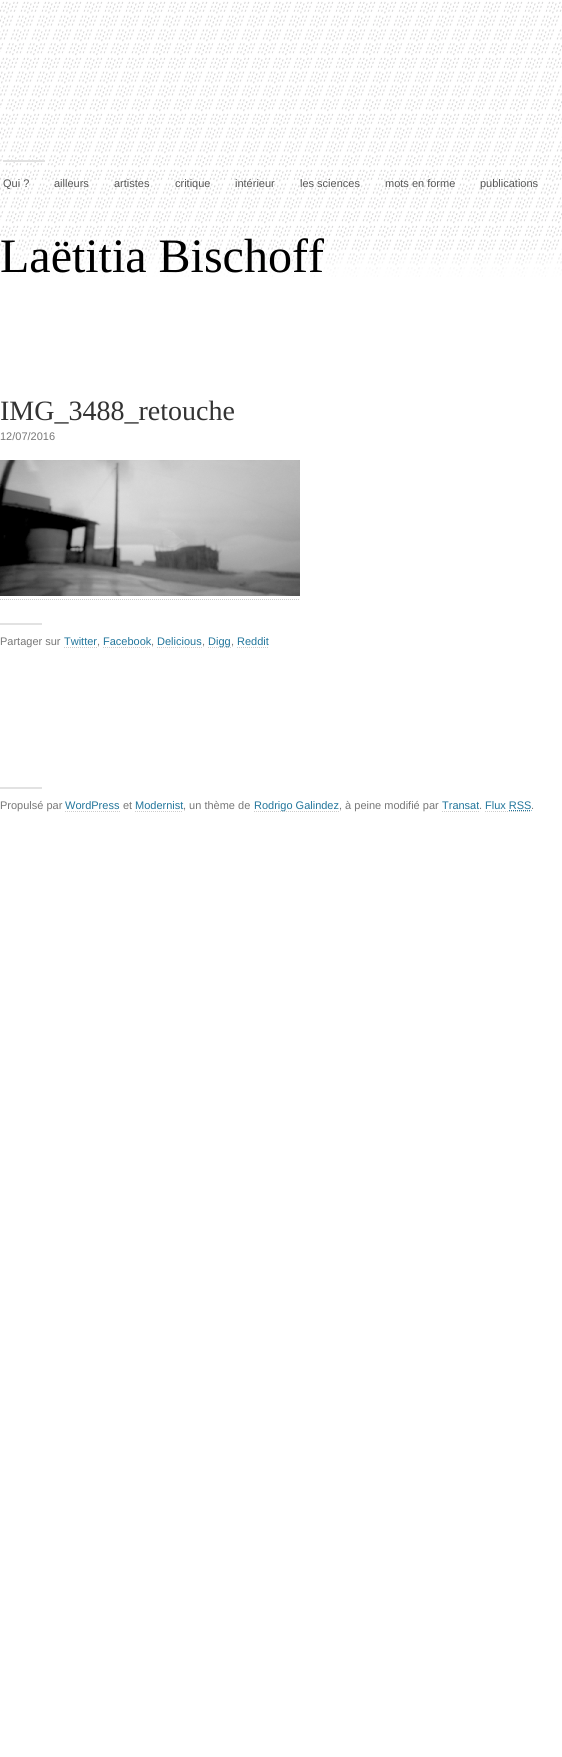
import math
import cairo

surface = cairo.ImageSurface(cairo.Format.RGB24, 562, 1757)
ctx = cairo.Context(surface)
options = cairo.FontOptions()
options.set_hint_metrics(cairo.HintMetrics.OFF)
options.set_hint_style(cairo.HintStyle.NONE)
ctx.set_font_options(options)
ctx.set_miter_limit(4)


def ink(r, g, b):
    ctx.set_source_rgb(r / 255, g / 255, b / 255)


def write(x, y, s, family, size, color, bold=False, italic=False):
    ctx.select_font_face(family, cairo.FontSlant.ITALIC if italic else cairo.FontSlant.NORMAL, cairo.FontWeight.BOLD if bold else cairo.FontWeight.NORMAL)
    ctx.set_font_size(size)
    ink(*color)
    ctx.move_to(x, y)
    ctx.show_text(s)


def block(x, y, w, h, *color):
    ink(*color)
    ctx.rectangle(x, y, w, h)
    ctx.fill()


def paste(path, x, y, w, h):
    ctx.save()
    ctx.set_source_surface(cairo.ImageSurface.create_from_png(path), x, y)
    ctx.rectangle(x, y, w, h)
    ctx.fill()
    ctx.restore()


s1 = dict(family="Liberation Sans", size=11, color=(85, 85, 85))
s2 = dict(family="Liberation Serif", size=48, color=(0, 0, 0))
s3 = dict(family="Liberation Serif", size=28, color=(51, 51, 51))
s4 = dict(family="Liberation Sans", size=11, color=(119, 119, 119))
s5 = dict(family="Liberation Sans", size=11, color=(33, 117, 155))

ink(255, 255, 255)
ctx.paint()
paste("pic1.png", 0, 1, 562, 276)
block(3, 160, 42, 2, 226, 226, 226)
write(3, 187, "Qui ?", **s1)
write(54, 187, "ailleurs", **s1)
write(114, 187, "artistes", **s1)
write(175, 187, "critique", **s1)
write(235, 187, "intérieur", **s1)
write(300, 187, "les sciences", **s1)
write(385, 187, "mots en forme", **s1)
write(480, 187, "publications", **s1)
write(0, 272, "Laëtitia Bischoff", **s2)
write(0, 420, "IMG_3488_retouche", **s3)
write(0, 440, "12/07/2016", **s4)
paste("pic2.png", 0, 460, 300, 136)
ctx.new_path()
ctx.move_to(0, 599.5)
ctx.line_to(300, 599.5)
ink(204, 204, 204)
ctx.set_line_width(1)
ctx.set_dash([1, 1])
ctx.stroke()
block(0, 623, 42, 2, 226, 226, 226)
write(0, 645, "Partager sur", **s4)
write(64, 645, "Twitter", **s5)
ctx.new_path()
ctx.move_to(64, 647.5)
ctx.line_to(97, 647.5)
ink(204, 204, 204)
ctx.stroke()
write(97, 645, ",", **s4)
write(103, 645, "Facebook", **s5)
ctx.new_path()
ctx.move_to(103, 647.5)
ctx.line_to(151, 647.5)
ink(204, 204, 204)
ctx.stroke()
write(151, 645, ",", **s4)
write(157, 645, "Delicious", **s5)
ctx.new_path()
ctx.move_to(157, 647.5)
ctx.line_to(202, 647.5)
ink(204, 204, 204)
ctx.stroke()
write(202, 645, ",", **s4)
ctx.new_path()
ctx.move_to(208, 647.5)
ctx.line_to(231, 647.5)
ink(204, 204, 204)
ctx.stroke()
write(208, 645, "Digg", **s5)
write(231, 645, ",", **s4)
write(237, 645, "Reddit", **s5)
ctx.new_path()
ctx.move_to(237, 647.5)
ctx.line_to(268, 647.5)
ink(204, 204, 204)
ctx.stroke()
block(0, 787, 42, 2, 226, 226, 226)
write(0, 809, "Propulsé par", **s4)
write(65, 809, "WordPress", **s5)
ctx.new_path()
ctx.move_to(65, 811.5)
ctx.line_to(120, 811.5)
ink(204, 204, 204)
ctx.stroke()
write(123, 809, "et", **s4)
write(135, 809, "Modernist", **s5)
ctx.new_path()
ctx.move_to(135, 811.5)
ctx.line_to(183, 811.5)
ink(204, 204, 204)
ctx.stroke()
write(183, 809, ", un thème de", **s4)
ctx.new_path()
ctx.move_to(254, 811.5)
ctx.line_to(339, 811.5)
ink(204, 204, 204)
ctx.stroke()
write(254, 809, "Rodrigo Galindez", **s5)
write(339, 809, ", à peine modifié par", **s4)
write(442, 809, "Transat", **s5)
ctx.new_path()
ctx.move_to(442, 811.5)
ctx.line_to(479, 811.5)
ink(204, 204, 204)
ctx.stroke()
write(479, 809, ".", **s4)
write(485, 809, "Flux RSS", **s5)
ctx.new_path()
ctx.move_to(485, 811.5)
ctx.line_to(509, 811.5)
ctx.move_to(509, 811.5)
ctx.line_to(531, 811.5)
ink(204, 204, 204)
ctx.stroke()
ctx.new_path()
ctx.move_to(509, 810.5)
ctx.line_to(531.5, 810.5)
ink(33, 117, 155)
ctx.stroke()
write(531, 809, ".", **s4)
surface.write_to_png("screenshot.png")
